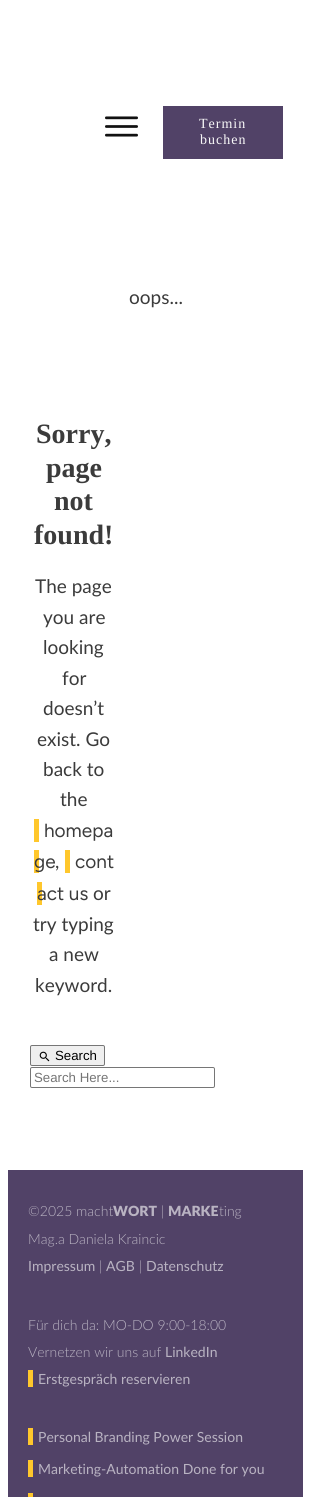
import math
import cairo

surface = cairo.ImageSurface(cairo.Format.RGB24, 311, 1497)
ctx = cairo.Context(surface)
options = cairo.FontOptions()
options.set_hint_metrics(cairo.HintMetrics.OFF)
options.set_hint_style(cairo.HintStyle.NONE)
ctx.set_font_options(options)
ctx.set_miter_limit(4)


def ink(r, g, b):
    ctx.set_source_rgb(r / 255, g / 255, b / 255)


def write(x, y, s, family, size, color, bold=False, italic=False):
    ctx.select_font_face(family, cairo.FontSlant.ITALIC if italic else cairo.FontSlant.NORMAL, cairo.FontWeight.BOLD if bold else cairo.FontWeight.NORMAL)
    ctx.set_font_size(size)
    ink(*color)
    ctx.move_to(x, y)
    ctx.show_text(s)


def write_spaced(x, y, s, letter, word):
    ctx.move_to(x, y)
    for ch in s:
        ctx.show_text(ch)
        ctx.rel_move_to(letter + word * (ch == ' '), 0)


def block(x, y, w, h, *color):
    ink(*color)
    ctx.rectangle(x, y, w, h)
    ctx.fill()


def round_path(x, y, w, h, r):
    ctx.new_sub_path()
    for i, (u, v) in enumerate([(x + w - r, y + h - r), (x + r, y + h - r), (x + r, y + r), (x + w - r, y + r)]):
        ctx.arc(u, v, r, i * math.pi / 2, (i + 1) * math.pi / 2)
    ctx.close_path()


def paste(path, x, y, w, h):
    ctx.save()
    ctx.set_source_surface(cairo.ImageSurface.create_from_png(path), x, y)
    ctx.rectangle(x, y, w, h)
    ctx.fill()
    ctx.restore()


s1 = dict(family="Lato", size=19, color=(59, 59, 59))
s2 = dict(family="Liberation Serif", size=28, color=(59, 59, 59), bold=True)
s3 = dict(family="Figtree", size=19, color=(59, 59, 59))
s4 = dict(family="Liberation Sans", size=13.25, color=(0, 0, 0))
s5 = dict(family="Liberation Sans", size=13.25, color=(117, 117, 117))
s6 = dict(family="Lato Light", size=14, color=(185, 179, 194))
s7 = dict(family="Lato ExtraBold", size=14, color=(185, 179, 194))
s8 = dict(family="Lato", size=14, color=(185, 179, 194))

ink(255, 255, 255)
ctx.paint()
paste("pic1.png", 105, 116, 33, 21)
block(163, 106, 120, 53, 81, 66, 103)
ctx.select_font_face("Liberation Serif")
ctx.set_font_size(14)
ink(248, 248, 248)
write_spaced(199, 128, "Termin", 1, 0)
write_spaced(200, 144, "buchen", 1, 0)
write(129, 304, "oops...", **s1)
write(36, 443, "Sorry,", **s2)
write(46, 477, "page", **s2)
write(54, 510, "not", **s2)
write(34, 544, "found!", **s2)
write(35, 593, "The page", **s1)
write(43, 624, "you are", **s1)
write(43, 654, "looking", **s1)
write(62, 685, "for", **s1)
write(43, 715, "doesn’t", **s1)
write(37, 746, "exist. Go", **s1)
write(43, 776, "back to", **s1)
write(60, 806, "the", **s1)
write(44, 837, "homepa", **s3)
block(34, 819, 5, 23, 255, 199, 44)
block(34, 850, 5, 23, 255, 199, 44)
write(34, 868, "ge", **s3)
write(55, 868, ",", **s1)
write(75, 868, "cont", **s3)
block(65, 850, 5, 23, 255, 199, 44)
block(37, 882, 5, 23, 255, 199, 44)
write(37, 900, "act us", **s3)
write(93, 900, "or", **s1)
write(33, 931, "try typing", **s1)
write(49, 961, "a new", **s1)
write(35, 992, "keyword.", **s1)
ink(239, 239, 239)
round_path(30.5, 1045.5, 74, 20, 1.5)
ctx.fill_preserve()
ink(118, 118, 118)
ctx.set_line_width(1)
ctx.stroke()
paste("pic2.png", 39, 1051, 11, 11)
write(55, 1060, "Search", **s4)
round_path(30.5, 1067.5, 184, 20, 1.5)
ink(118, 118, 118)
ctx.stroke()
write(34, 1082, "Search Here...", **s5)
block(8, 1170, 295, 327, 81, 66, 103)
write(28, 1216, "©2025 macht", **s6)
write(113, 1216, "WORT", **s7)
write(161, 1216, "|", **s6)
write(168, 1216, "MARKE", **s7)
write(219, 1216, "ting", **s6)
write(28, 1244, "Mag.a Daniela Kraincic", **s6)
write(28, 1271, "Impressum", **s8)
write(99, 1271, "|", **s6)
write(106, 1271, "AGB", **s8)
write(139, 1271, "|", **s6)
write(146, 1271, "Datenschutz", **s8)
write(28, 1330, "Für dich da: MO-DO 9:00-18:00", **s6)
write(28, 1357, "Vernetzen wir uns auf", **s6)
write(165, 1357, "LinkedIn", **s8)
write(38, 1384, "Erstgespräch reservieren", **s8)
block(28, 1370, 5, 17, 255, 199, 44)
write(38, 1442, "Personal Branding Power Session", **s8)
block(28, 1428, 5, 17, 255, 199, 44)
write(38, 1474, "Marketing-Automation Done for you", **s8)
block(28, 1460, 5, 17, 255, 199, 44)
block(28, 1493, 5, 4, 255, 199, 44)
surface.write_to_png("screenshot.png")
